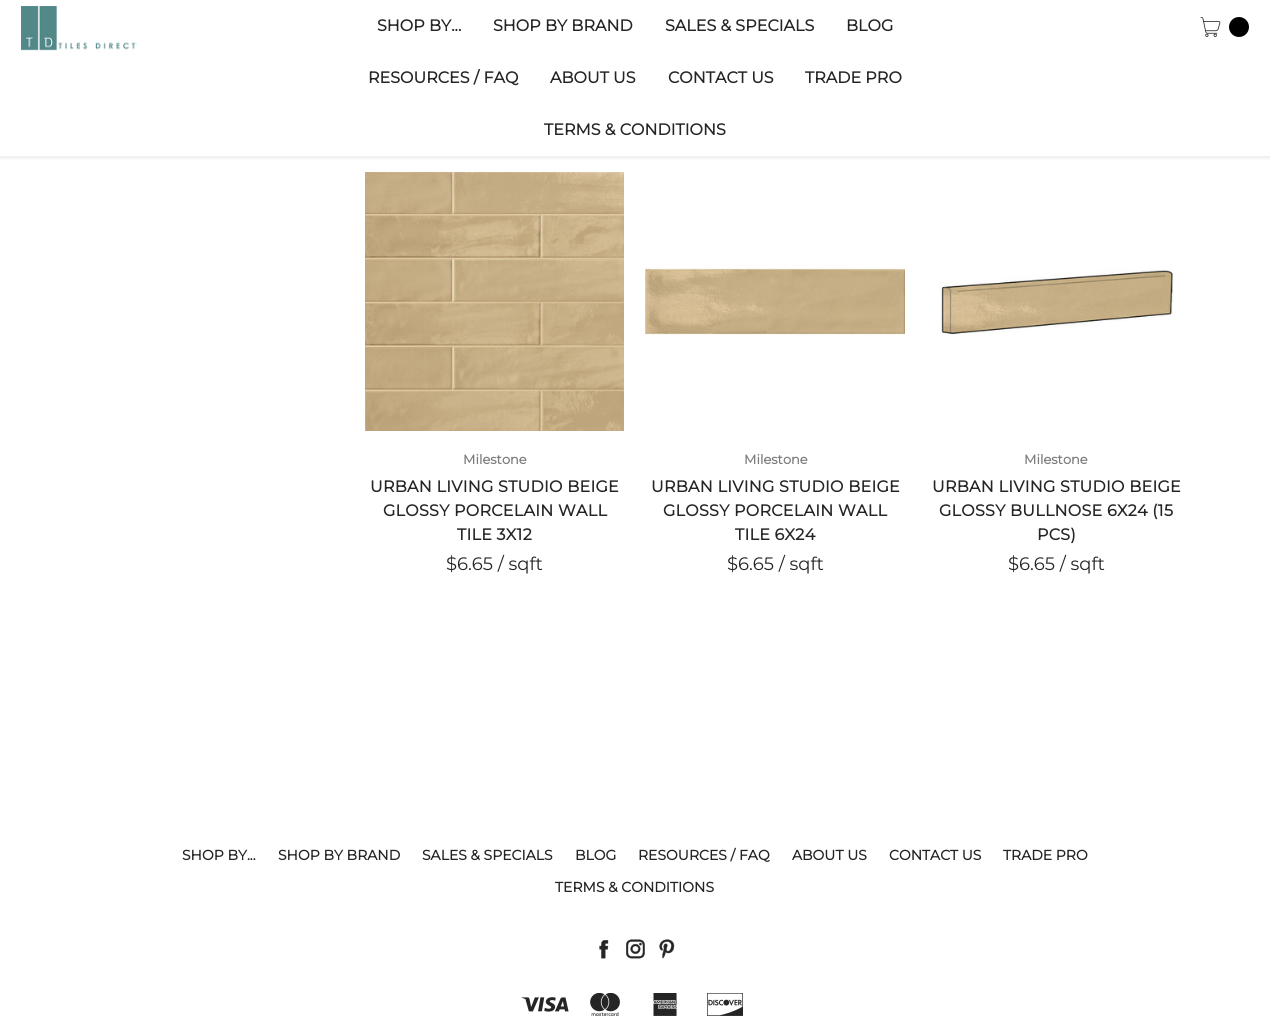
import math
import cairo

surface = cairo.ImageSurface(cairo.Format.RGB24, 1270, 1036)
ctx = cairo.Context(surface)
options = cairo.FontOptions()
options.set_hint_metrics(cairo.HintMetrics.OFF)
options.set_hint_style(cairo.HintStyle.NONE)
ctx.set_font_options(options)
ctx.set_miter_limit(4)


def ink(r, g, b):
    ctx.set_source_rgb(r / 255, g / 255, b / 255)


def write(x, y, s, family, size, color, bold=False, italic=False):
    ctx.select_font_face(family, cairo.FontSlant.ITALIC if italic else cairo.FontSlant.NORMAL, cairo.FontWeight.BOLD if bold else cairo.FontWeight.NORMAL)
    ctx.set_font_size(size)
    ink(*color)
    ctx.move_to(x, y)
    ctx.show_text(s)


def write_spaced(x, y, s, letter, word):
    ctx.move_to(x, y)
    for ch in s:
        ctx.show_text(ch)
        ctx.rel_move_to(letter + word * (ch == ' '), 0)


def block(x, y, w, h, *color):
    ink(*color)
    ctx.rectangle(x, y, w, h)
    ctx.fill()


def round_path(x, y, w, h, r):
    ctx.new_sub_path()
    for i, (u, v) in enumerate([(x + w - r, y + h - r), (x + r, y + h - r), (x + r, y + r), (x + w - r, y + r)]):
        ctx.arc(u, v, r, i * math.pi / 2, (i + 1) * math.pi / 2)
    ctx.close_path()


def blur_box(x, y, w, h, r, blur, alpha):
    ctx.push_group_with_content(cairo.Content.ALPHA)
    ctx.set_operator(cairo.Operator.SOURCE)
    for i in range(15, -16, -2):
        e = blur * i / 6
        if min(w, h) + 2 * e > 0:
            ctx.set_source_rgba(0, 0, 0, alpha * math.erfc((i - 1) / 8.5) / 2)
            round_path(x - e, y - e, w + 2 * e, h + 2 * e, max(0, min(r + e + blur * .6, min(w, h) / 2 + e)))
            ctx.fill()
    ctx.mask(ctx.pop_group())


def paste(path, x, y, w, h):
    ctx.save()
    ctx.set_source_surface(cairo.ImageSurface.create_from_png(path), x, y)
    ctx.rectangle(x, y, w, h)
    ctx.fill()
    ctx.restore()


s1 = dict(family="Montserrat", size=16, color=(37, 37, 37), bold=True)
s2 = dict(family="Montserrat", size=13, color=(124, 124, 124), bold=True)
s3 = dict(family="Montserrat Thin", size=18, color=(37, 37, 37))
s4 = dict(family="Montserrat", size=14, color=(37, 37, 37), bold=True)

ink(255, 255, 255)
ctx.paint()
ink(0, 0, 0)
blur_box(-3, -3, 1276, 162, 0, 1, 0.06)
block(0, 0, 1270, 156, 255, 255, 255)
paste("pic1.png", 21, 6, 116, 45)
write(377, 31, "SHOP BY...", **s1)
write(493, 31, "SHOP BY BRAND", **s1)
write(665, 31, "SALES & SPECIALS", **s1)
write(846, 31, "BLOG", **s1)
write(368, 83, "RESOURCES / FAQ", **s1)
write(550, 83, "ABOUT US", **s1)
write(668, 83, "CONTACT US", **s1)
write(805, 83, "TRADE PRO", **s1)
write(544, 135, "TERMS & CONDITIONS", **s1)
paste("pic2.png", 1200, 17, 21, 20)
ink(0, 0, 0)
ctx.arc(1239, 27, 10, 0, 2 * math.pi)
ctx.fill()
paste("pic3.png", 365, 172, 259, 259)
write(463, 464, "Milestone", **s2)
ctx.set_font_size(16)
ink(37, 37, 37)
write_spaced(370, 492, "URBAN LIVING STUDIO BEIGE", 0.25, 0)
write_spaced(383, 516, "GLOSSY PORCELAIN WALL", 0.25, 0)
write_spaced(457, 540, "TILE 3X12", 0.25, 0)
write(446, 570, "$6.65 / sqft", **s3)
paste("pic4.png", 645, 268, 260, 67)
write(744, 464, "Milestone", **s2)
ctx.set_font_size(16)
ink(37, 37, 37)
write_spaced(651, 492, "URBAN LIVING STUDIO BEIGE", 0.25, 0)
write_spaced(663, 516, "GLOSSY PORCELAIN WALL", 0.25, 0)
write_spaced(735, 540, "TILE 6X24", 0.25, 0)
write(727, 570, "$6.65 / sqft", **s3)
paste("pic5.png", 939, 269, 235, 66)
write(1024, 464, "Milestone", **s2)
ctx.set_font_size(16)
ink(37, 37, 37)
write_spaced(932, 492, "URBAN LIVING STUDIO BEIGE", 0.25, 0)
write_spaced(939, 516, "GLOSSY BULLNOSE 6X24 (15", 0.25, 0)
write_spaced(1037, 540, "PCS)", 0.25, 0)
write(1008, 570, "$6.65 / sqft", **s3)
write(182, 860, "SHOP BY...", **s4)
write(278, 860, "SHOP BY BRAND", **s4)
write(422, 860, "SALES & SPECIALS", **s4)
write(575, 860, "BLOG", **s4)
write(638, 860, "RESOURCES / FAQ", **s4)
write(792, 860, "ABOUT US", **s4)
write(889, 860, "CONTACT US", **s4)
write(1003, 860, "TRADE PRO", **s4)
write(555, 892, "TERMS & CONDITIONS", **s4)
paste("pic6.png", 599, 940, 10, 19)
paste("pic7.png", 626, 939, 19, 20)
paste("pic8.png", 659, 939, 16, 20)
paste("pic9.png", 521, 997, 48, 15)
paste("pic10.png", 590, 993, 30, 23)
paste("pic11.png", 653, 993, 24, 23)
paste("pic12.png", 707, 993, 36, 23)
surface.write_to_png("screenshot.png")
